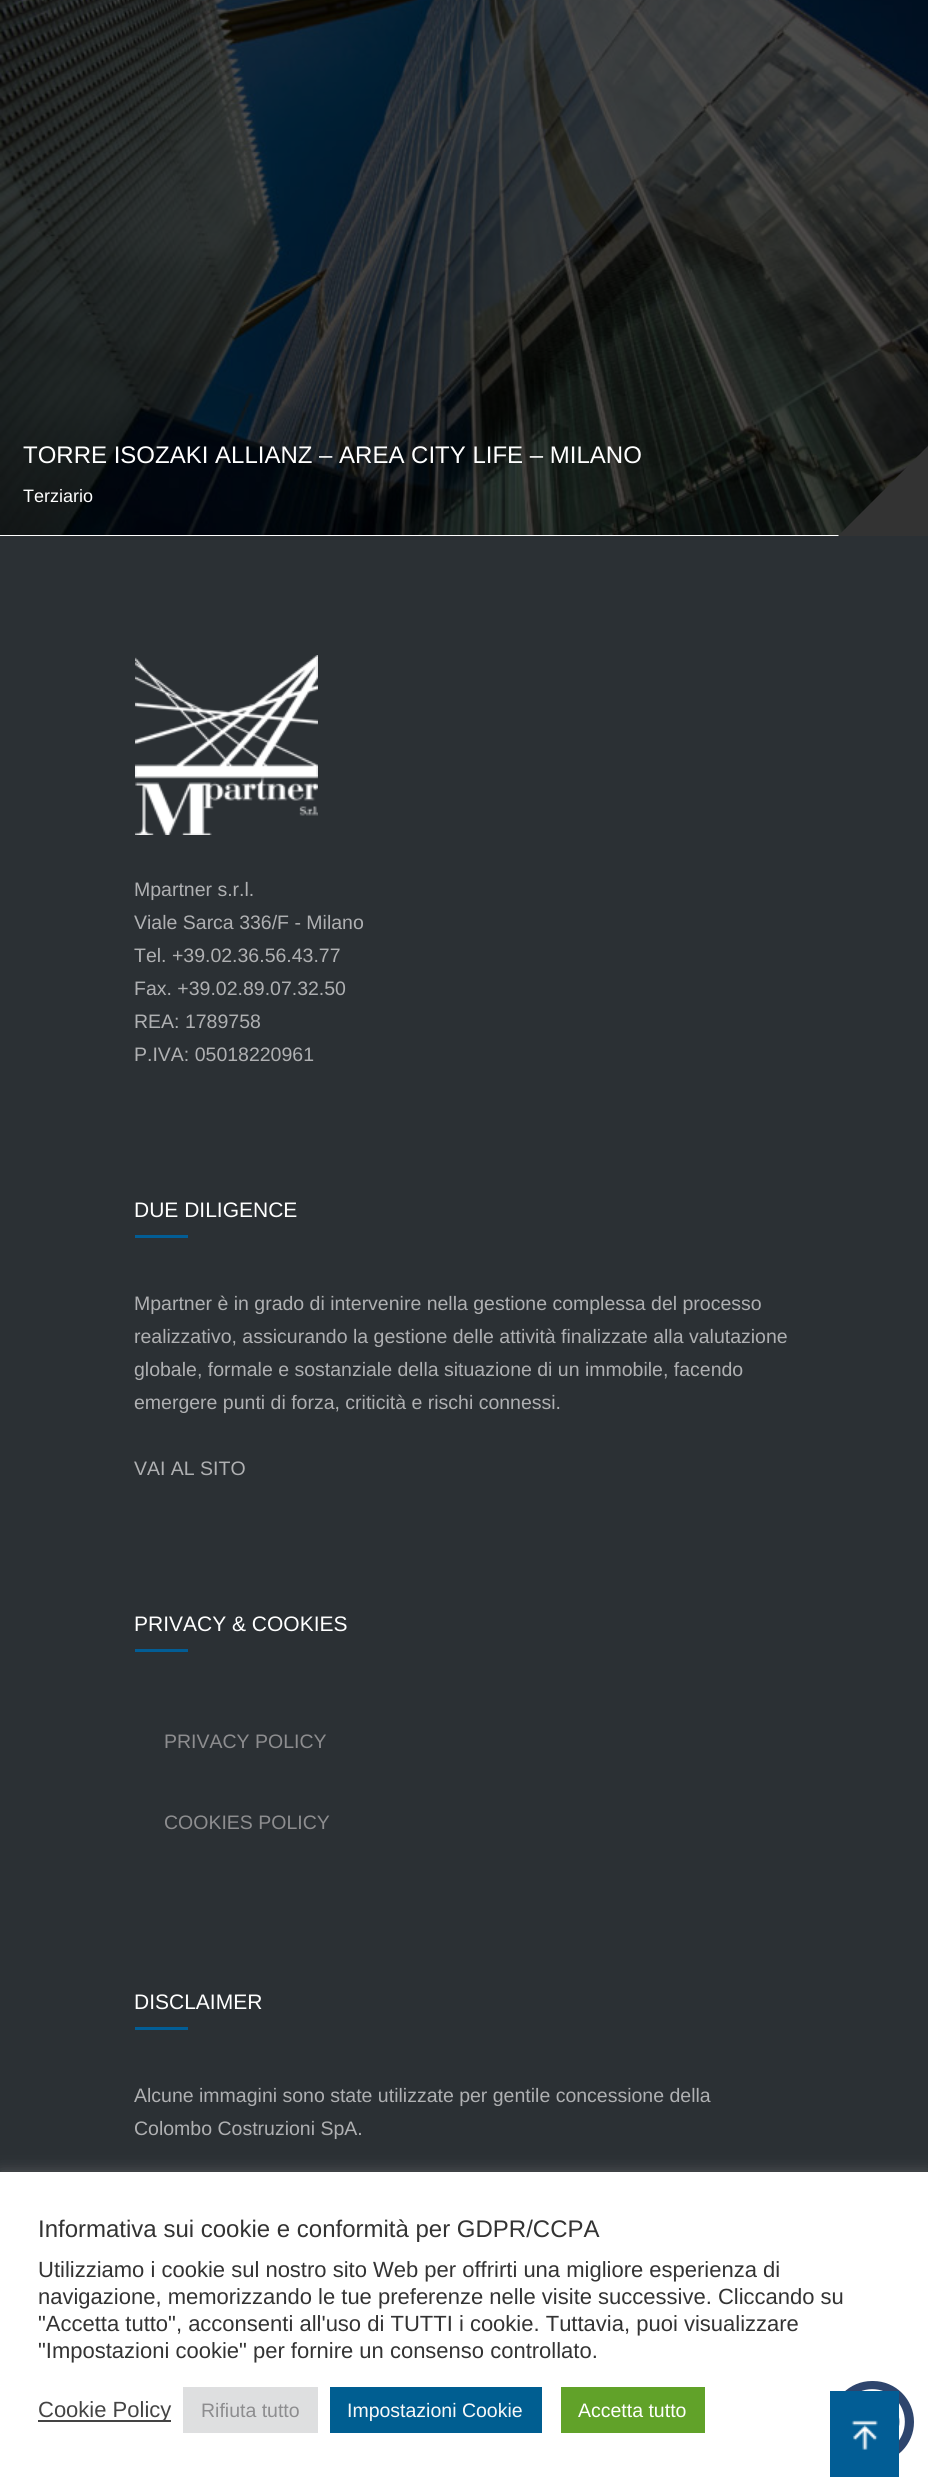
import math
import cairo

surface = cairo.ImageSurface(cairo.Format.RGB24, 928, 2477)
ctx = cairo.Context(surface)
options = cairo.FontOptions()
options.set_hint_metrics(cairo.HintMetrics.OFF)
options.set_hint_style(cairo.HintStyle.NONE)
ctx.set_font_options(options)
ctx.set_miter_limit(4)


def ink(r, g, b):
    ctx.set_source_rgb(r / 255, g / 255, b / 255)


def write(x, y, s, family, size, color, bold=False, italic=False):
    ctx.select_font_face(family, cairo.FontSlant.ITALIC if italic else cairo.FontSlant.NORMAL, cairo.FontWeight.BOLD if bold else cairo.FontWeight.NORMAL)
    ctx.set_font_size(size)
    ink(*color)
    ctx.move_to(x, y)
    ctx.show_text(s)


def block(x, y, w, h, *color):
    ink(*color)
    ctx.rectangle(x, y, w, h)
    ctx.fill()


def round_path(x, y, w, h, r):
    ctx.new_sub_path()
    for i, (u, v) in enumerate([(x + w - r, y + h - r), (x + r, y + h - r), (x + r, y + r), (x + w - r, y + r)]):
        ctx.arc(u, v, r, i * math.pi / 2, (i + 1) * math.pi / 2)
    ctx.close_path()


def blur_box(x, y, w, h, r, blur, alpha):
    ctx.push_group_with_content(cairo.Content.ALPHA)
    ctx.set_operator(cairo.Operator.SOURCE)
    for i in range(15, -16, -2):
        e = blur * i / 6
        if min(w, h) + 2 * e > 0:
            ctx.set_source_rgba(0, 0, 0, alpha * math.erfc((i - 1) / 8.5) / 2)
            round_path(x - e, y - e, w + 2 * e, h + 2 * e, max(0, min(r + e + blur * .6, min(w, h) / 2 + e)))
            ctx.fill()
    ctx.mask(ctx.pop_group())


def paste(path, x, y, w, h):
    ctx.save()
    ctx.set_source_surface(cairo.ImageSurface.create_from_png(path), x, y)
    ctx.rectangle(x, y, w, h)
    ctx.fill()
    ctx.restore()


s1 = dict(family="Liberation Sans", size=24, color=(255, 255, 255))
s2 = dict(family="Liberation Sans", size=18, color=(255, 255, 255))
s3 = dict(family="Liberation Sans", size=19.5, color=(175, 176, 178))
s4 = dict(family="Liberation Sans", size=21, color=(255, 255, 255))
s5 = dict(family="Liberation Sans", size=19.5, color=(141, 141, 143))
s6 = dict(family="Liberation Sans", size=24, color=(51, 51, 51))
s7 = dict(family="Liberation Sans", size=22, color=(51, 51, 51))
s8 = dict(family="Liberation Sans", size=22, color=(68, 68, 68))
s9 = dict(family="Liberation Sans", size=19.5, color=(249, 249, 249))
s10 = dict(family="Liberation Sans", size=19.5, color=(255, 255, 255))

ink(255, 255, 255)
ctx.paint()
paste("pic1.png", 0, 0, 928, 535)
write(23, 463, "TORRE ISOZAKI ALLIANZ – AREA CITY LIFE – MILANO", **s1)
ink(51, 51, 51)
ctx.new_path()
ctx.move_to(928, 536)
ctx.line_to(838, 536)
ctx.line_to(928, 446)
ctx.close_path()
ctx.fill()
write(23, 502, "Terziario", **s2)
block(0, 536, 928, 1636, 43, 48, 52)
paste("pic2.png", 135, 655, 183, 180)
write(134, 896, "Mpartner s.r.l.", **s3)
write(134, 929, "Viale Sarca 336/F - Milano", **s3)
write(134, 962, "Tel. +39.02.36.56.43.77", **s3)
write(134, 995, "Fax. +39.02.89.07.32.50", **s3)
write(134, 1028, "REA: 1789758", **s3)
write(134, 1061, "P.IVA: 05018220961", **s3)
write(134, 1217, "DUE DILIGENCE", **s4)
block(135, 1235, 53, 3, 2, 93, 149)
write(134, 1310, "Mpartner è in grado di intervenire nella gestione complessa del processo", **s3)
write(134, 1343, "realizzativo, assicurando la gestione delle attività finalizzate alla valutazione", **s3)
write(134, 1376, "globale, formale e sostanziale della situazione di un immobile, facendo", **s3)
write(134, 1409, "emergere punti di forza, criticità e rischi connessi.", **s3)
write(134, 1475, "VAI AL SITO", **s3)
write(134, 1631, "PRIVACY & COOKIES", **s4)
block(135, 1649, 53, 3, 2, 93, 149)
write(164, 1748, "PRIVACY POLICY", **s5)
write(164, 1829, "COOKIES POLICY", **s5)
write(134, 2009, "DISCLAIMER", **s4)
block(135, 2027, 53, 3, 2, 93, 149)
write(134, 2102, "Alcune immagini sono state utilizzate per gentile concessione della", **s3)
write(134, 2135, "Colombo Costruzioni SpA.", **s3)
ink(172, 171, 171)
blur_box(0, 2171, 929, 306, 0, 7.5, 0.3)
block(0, 2172, 928, 305, 255, 255, 255)
write(38, 2237, "Informativa sui cookie e conformità per GDPR/CCPA", **s6)
write(38, 2277, "Utilizziamo i cookie sul nostro sito Web per offrirti una migliore esperienza di", **s7)
write(38, 2304, "navigazione, memorizzando le tue preferenze nelle visite successive. Cliccando su", **s7)
write(38, 2331, "\"Accetta tutto\", acconsenti all'uso di TUTTI i cookie. Tuttavia, puoi visualizzare", **s7)
write(38, 2358, "\"Impostazioni cookie\" per fornire un consenso controllato.", **s7)
block(38, 2420, 133, 2, 68, 68, 68)
write(38, 2417, "Cookie Policy", **s8)
block(183, 2387, 135, 46, 222, 223, 224)
write(201, 2417, "Rifiuta tutto", **s5)
block(330, 2387, 212, 46, 0, 94, 145)
write(347, 2417, "Impostazioni Cookie", **s9)
block(561, 2387, 144, 46, 97, 162, 41)
write(578, 2417, "Accetta tutto", **s10)
ink(46, 69, 109)
round_path(831, 2381, 83, 82, 41)
ctx.fill()
paste("pic3.png", 861, 2389, 44, 52)
block(830, 2391, 69, 86, 2, 93, 149)
paste("pic4.png", 851, 2420, 27, 30)
surface.write_to_png("screenshot.png")
